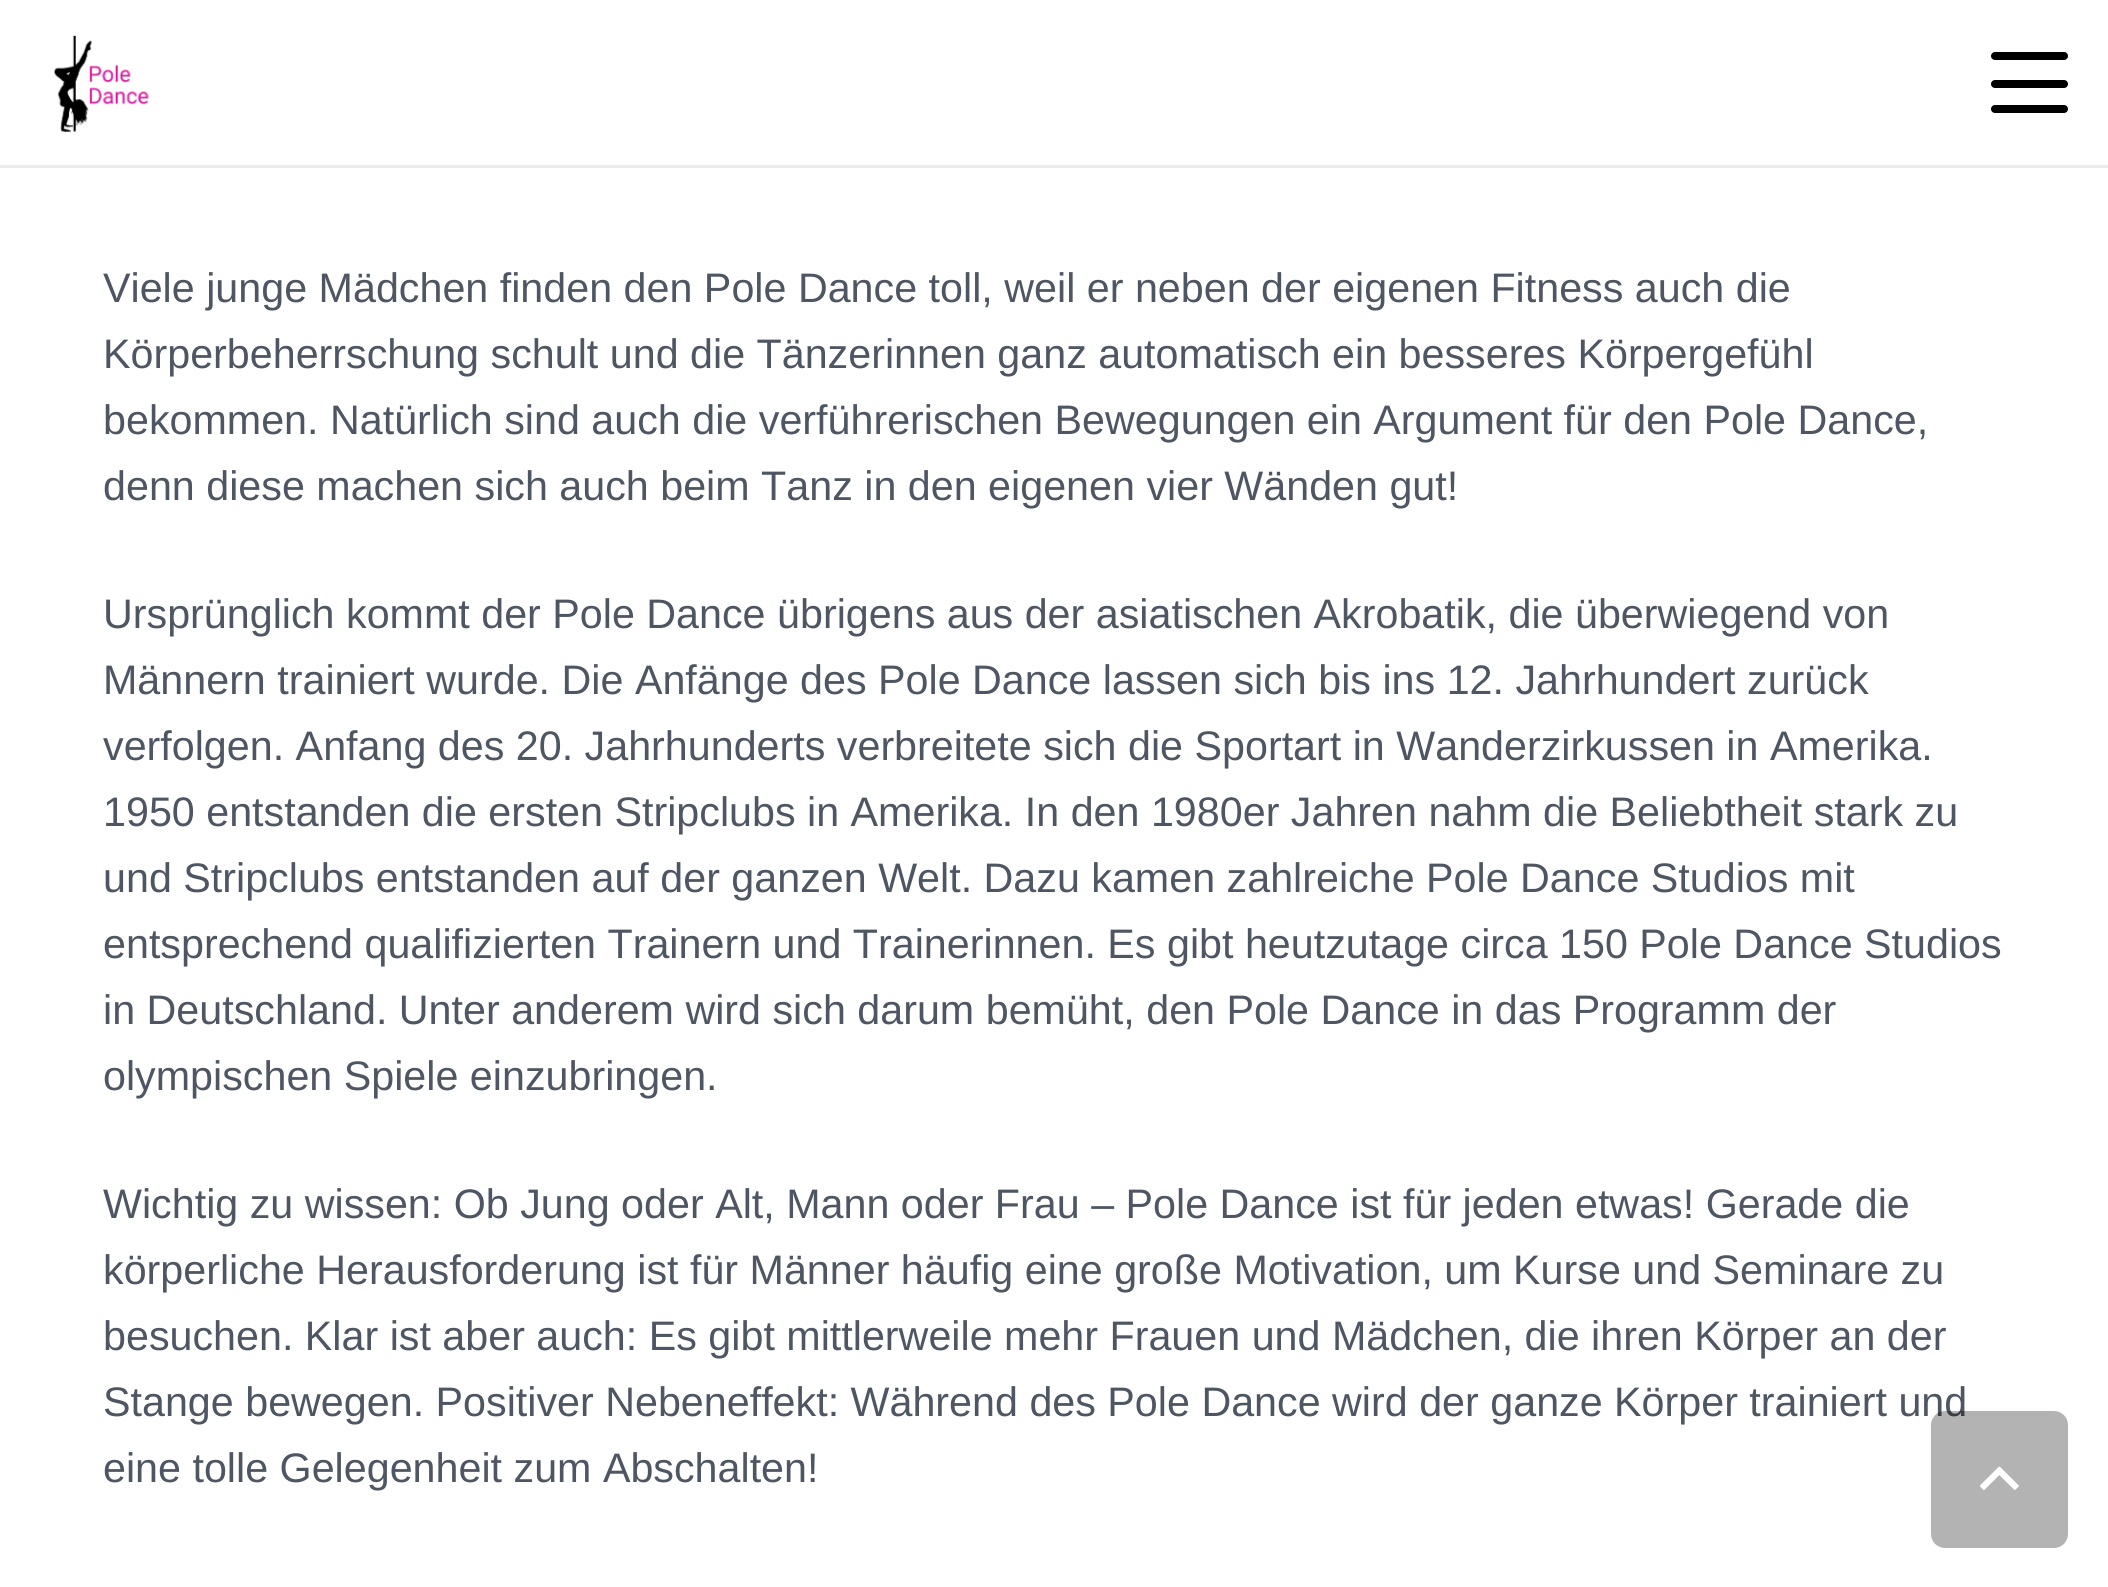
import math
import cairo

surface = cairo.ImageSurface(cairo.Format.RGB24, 2108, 1587)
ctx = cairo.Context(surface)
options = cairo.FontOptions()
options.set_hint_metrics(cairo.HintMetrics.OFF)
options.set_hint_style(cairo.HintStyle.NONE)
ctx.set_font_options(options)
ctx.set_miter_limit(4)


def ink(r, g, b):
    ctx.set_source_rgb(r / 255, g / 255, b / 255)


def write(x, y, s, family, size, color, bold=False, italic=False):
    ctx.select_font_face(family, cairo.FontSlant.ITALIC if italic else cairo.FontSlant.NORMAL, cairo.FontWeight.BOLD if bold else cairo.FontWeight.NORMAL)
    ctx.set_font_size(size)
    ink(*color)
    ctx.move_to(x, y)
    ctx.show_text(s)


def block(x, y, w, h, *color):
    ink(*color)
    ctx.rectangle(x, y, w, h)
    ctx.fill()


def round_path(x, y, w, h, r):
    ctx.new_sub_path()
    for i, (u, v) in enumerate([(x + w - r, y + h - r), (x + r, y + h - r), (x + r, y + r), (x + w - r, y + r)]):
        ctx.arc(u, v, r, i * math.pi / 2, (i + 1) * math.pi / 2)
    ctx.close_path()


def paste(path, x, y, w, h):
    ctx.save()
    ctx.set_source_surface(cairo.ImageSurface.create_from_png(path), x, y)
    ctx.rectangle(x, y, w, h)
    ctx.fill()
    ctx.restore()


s1 = dict(family="Liberation Sans", size=41.25, color=(78, 86, 99))

ink(255, 255, 255)
ctx.paint()
block(0, 165, 2108, 3, 235, 235, 235)
paste("pic1.png", 53, 35, 96, 97)
ink(0, 0, 0)
round_path(1991, 80, 77, 8, 4)
ctx.fill()
round_path(1991, 52, 77, 8, 4)
ctx.fill()
round_path(1991, 105, 77, 8, 4)
ctx.fill()
write(103, 302, "Viele junge Mädchen finden den Pole Dance toll, weil er neben der eigenen Fitness auch die", **s1)
write(103, 368, "Körperbeherrschung schult und die Tänzerinnen ganz automatisch ein besseres Körpergefühl", **s1)
write(103, 434, "bekommen. Natürlich sind auch die verführerischen Bewegungen ein Argument für den Pole Dance,", **s1)
write(103, 500, "denn diese machen sich auch beim Tanz in den eigenen vier Wänden gut!", **s1)
write(103, 628, "Ursprünglich kommt der Pole Dance übrigens aus der asiatischen Akrobatik, die überwiegend von", **s1)
write(103, 694, "Männern trainiert wurde. Die Anfänge des Pole Dance lassen sich bis ins 12. Jahrhundert zurück", **s1)
write(103, 760, "verfolgen. Anfang des 20. Jahrhunderts verbreitete sich die Sportart in Wanderzirkussen in Amerika.", **s1)
write(103, 826, "1950 entstanden die ersten Stripclubs in Amerika. In den 1980er Jahren nahm die Beliebtheit stark zu", **s1)
write(103, 892, "und Stripclubs entstanden auf der ganzen Welt. Dazu kamen zahlreiche Pole Dance Studios mit", **s1)
write(103, 958, "entsprechend qualifizierten Trainern und Trainerinnen. Es gibt heutzutage circa 150 Pole Dance Studios", **s1)
write(103, 1024, "in Deutschland. Unter anderem wird sich darum bemüht, den Pole Dance in das Programm der", **s1)
write(103, 1090, "olympischen Spiele einzubringen.", **s1)
write(103, 1218, "Wichtig zu wissen: Ob Jung oder Alt, Mann oder Frau – Pole Dance ist für jeden etwas! Gerade die", **s1)
write(103, 1284, "körperliche Herausforderung ist für Männer häufig eine große Motivation, um Kurse und Seminare zu", **s1)
write(103, 1350, "besuchen. Klar ist aber auch: Es gibt mittlerweile mehr Frauen und Mädchen, die ihren Körper an der", **s1)
write(103, 1416, "Stange bewegen. Positiver Nebeneffekt: Während des Pole Dance wird der ganze Körper trainiert und", **s1)
write(103, 1482, "eine tolle Gelegenheit zum Abschalten!", **s1)
ctx.set_source_rgba(0, 0, 0, 0.3)
round_path(1931, 1411, 137, 137, 14)
ctx.fill()
paste("pic2.png", 1980, 1466, 39, 24)
surface.write_to_png("screenshot.png")
